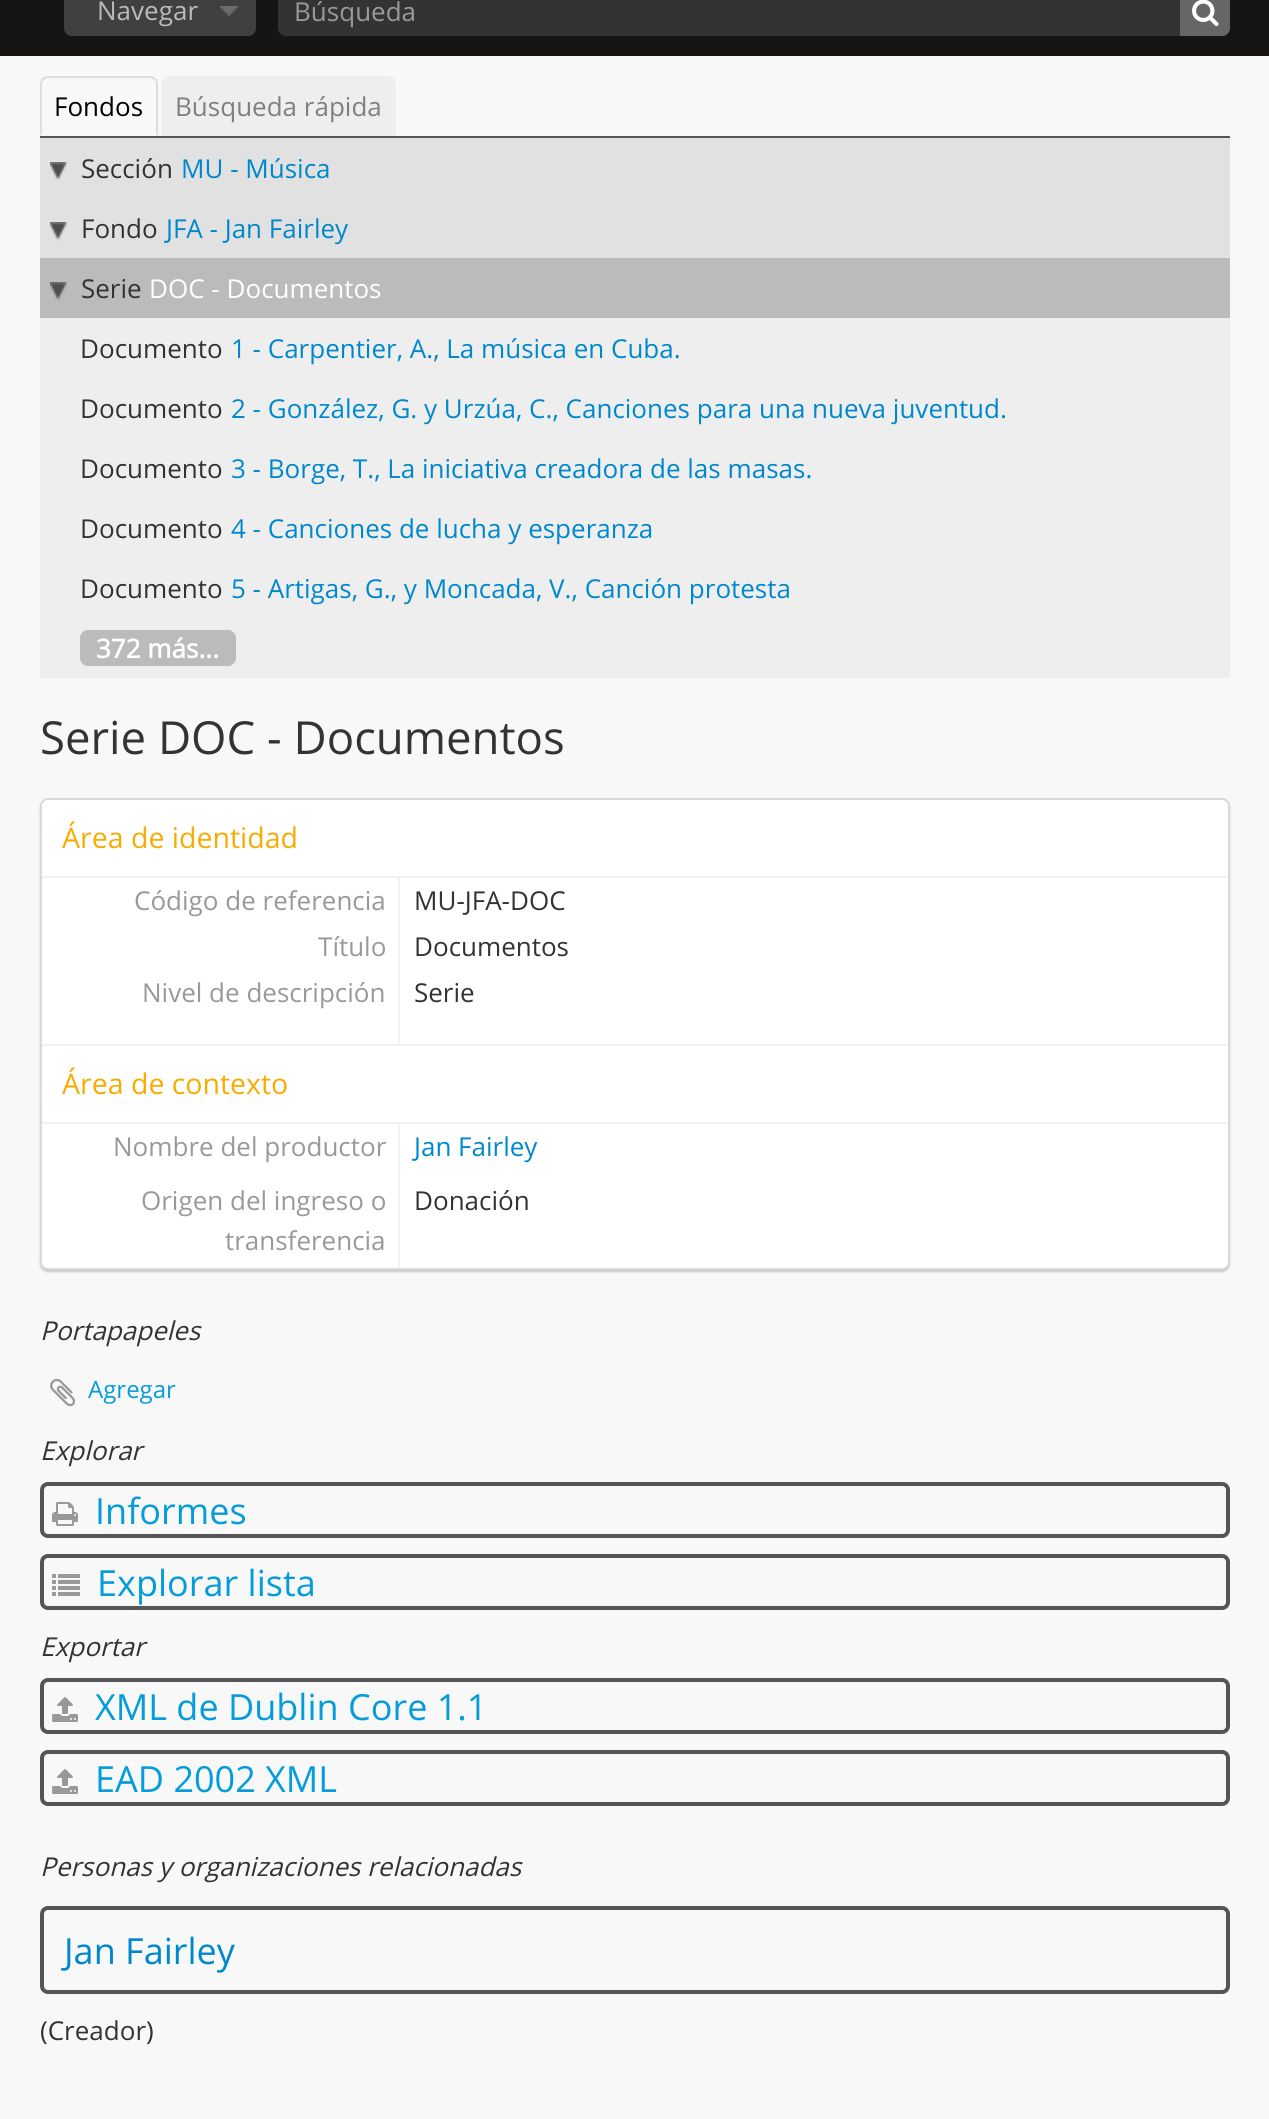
import math
import cairo

surface = cairo.ImageSurface(cairo.Format.RGB24, 1269, 2119)
ctx = cairo.Context(surface)
options = cairo.FontOptions()
options.set_hint_metrics(cairo.HintMetrics.OFF)
options.set_hint_style(cairo.HintStyle.NONE)
ctx.set_font_options(options)
ctx.set_miter_limit(4)


def ink(r, g, b):
    ctx.set_source_rgb(r / 255, g / 255, b / 255)


def write(x, y, s, family, size, color, bold=False, italic=False):
    ctx.select_font_face(family, cairo.FontSlant.ITALIC if italic else cairo.FontSlant.NORMAL, cairo.FontWeight.BOLD if bold else cairo.FontWeight.NORMAL)
    ctx.set_font_size(size)
    ink(*color)
    ctx.move_to(x, y)
    ctx.show_text(s)


def block(x, y, w, h, *color):
    ink(*color)
    ctx.rectangle(x, y, w, h)
    ctx.fill()


def round_path(x, y, w, h, r):
    ctx.new_sub_path()
    for i, (u, v) in enumerate([(x + w - r, y + h - r), (x + r, y + h - r), (x + r, y + r), (x + w - r, y + r)]):
        ctx.arc(u, v, r, i * math.pi / 2, (i + 1) * math.pi / 2)
    ctx.close_path()


def blur_box(x, y, w, h, r, blur, alpha):
    ctx.push_group_with_content(cairo.Content.ALPHA)
    ctx.set_operator(cairo.Operator.SOURCE)
    for i in range(15, -16, -2):
        e = blur * i / 6
        if min(w, h) + 2 * e > 0:
            ctx.set_source_rgba(0, 0, 0, alpha * math.erfc((i - 1) / 8.5) / 2)
            round_path(x - e, y - e, w + 2 * e, h + 2 * e, max(0, min(r + e + blur * .6, min(w, h) / 2 + e)))
            ctx.fill()
    ctx.mask(ctx.pop_group())


def paste(path, x, y, w, h):
    ctx.save()
    ctx.set_source_surface(cairo.ImageSurface.create_from_png(path), x, y)
    ctx.rectangle(x, y, w, h)
    ctx.fill()
    ctx.restore()


s1 = dict(family="Open Sans", size=26, color=(187, 187, 187))
s2 = dict(family="Open Sans", size=26, color=(153, 153, 153))
s3 = dict(family="Open Sans", size=26, color=(0, 0, 0))
s4 = dict(family="Open Sans", size=26, color=(128, 128, 128))
s5 = dict(family="Open Sans", size=26, color=(51, 51, 51))
s6 = dict(family="Open Sans", size=26, color=(0, 136, 204))
s7 = dict(family="Open Sans", size=26, color=(255, 255, 255))
s8 = dict(family="Open Sans", size=26, color=(255, 255, 255), bold=True)
s9 = dict(family="Open Sans", size=45.5, color=(51, 51, 51))
s10 = dict(family="Open Sans", size=28.5, color=(246, 172, 0))
s11 = dict(family="Open Sans", size=26, color=(51, 51, 51), italic=True)
s12 = dict(family="Open Sans", size=24, color=(4, 156, 219))
s13 = dict(family="Open Sans", size=36, color=(4, 156, 219))
s14 = dict(family="Open Sans", size=36, color=(0, 136, 204))

ink(248, 248, 248)
ctx.paint()
block(0, 0, 1269, 56, 22, 21, 20)
ink(64, 64, 64)
round_path(64, -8, 192, 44, 8)
ctx.fill()
paste("pic1.png", 220, 6, 19, 10)
write(97, 20, "Navegar", **s1)
ink(51, 51, 51)
round_path(278, -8, 952, 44, 8)
ctx.fill()
write(294, 21, "Búsqueda", **s2)
ink(102, 102, 102)
ctx.new_path()
ctx.move_to(1180, -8)
ctx.line_to(1222, -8)
ctx.curve_to(1226.5, -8, 1230, -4.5, 1230, 0)
ctx.line_to(1230, 28)
ctx.curve_to(1230, 32.5, 1226.5, 36, 1222, 36)
ctx.line_to(1180, 36)
ctx.close_path()
ctx.fill()
paste("pic2.png", 1192, 0, 27, 27)
block(40, 136, 1190, 2, 85, 85, 85)
ink(221, 221, 221)
ctx.new_path()
ctx.move_to(48, 76)
ctx.curve_to(46, 76, 44, 77, 42, 78)
ctx.line_to(44, 80)
ctx.line_to(47, 78)
ctx.line_to(151, 78)
ctx.line_to(154, 80)
ctx.line_to(156, 78)
ctx.curve_to(154, 77, 152, 76, 150, 76)
ctx.close_path()
ctx.fill()
ctx.new_path()
ctx.move_to(158, 136)
ctx.line_to(158, 84)
ctx.curve_to(158, 82, 157, 80, 156, 78)
ctx.line_to(154, 80)
ctx.curve_to(155, 81, 156, 82, 156, 84)
ctx.line_to(156, 134)
ctx.close_path()
ctx.fill()
ctx.new_path()
ctx.move_to(40, 136)
ctx.line_to(42, 134)
ctx.line_to(42, 84)
ctx.curve_to(42, 82, 43, 81, 44, 80)
ctx.line_to(42, 78)
ctx.curve_to(41, 80, 40, 82, 40, 84)
ctx.close_path()
ctx.fill()
write(54, 116, "Fondos", **s3)
ink(238, 238, 238)
ctx.new_path()
ctx.move_to(170, 76)
ctx.line_to(388, 76)
ctx.curve_to(392.5, 76, 396, 79.5, 396, 84)
ctx.line_to(396, 136)
ctx.line_to(162, 136)
ctx.line_to(162, 84)
ctx.curve_to(162, 79.5, 165.5, 76, 170, 76)
ctx.close_path()
ctx.fill()
write(175, 116, "Búsqueda rápida", **s4)
block(40, 318, 1190, 360, 238, 238, 238)
block(40, 138, 1190, 120, 225, 225, 225)
paste("pic3.png", 50, 162, 18, 19)
write(81, 178, "Sección", **s5)
write(181, 178, "MU - Música", **s6)
paste("pic3.png", 50, 222, 18, 19)
write(81, 238, "Fondo", **s5)
write(166, 238, "JFA - Jan Fairley", **s6)
block(40, 258, 1190, 60, 187, 187, 187)
paste("pic4.png", 50, 282, 18, 18)
write(81, 298, "Serie", **s5)
write(149, 298, "DOC - Documentos", **s7)
write(80, 358, "Documento", **s5)
write(231, 358, "1 - Carpentier, A., La música en Cuba.", **s6)
write(80, 418, "Documento", **s5)
write(231, 418, "2 - González, G. y Urzúa, C., Canciones para una nueva juventud.", **s6)
write(80, 478, "Documento", **s5)
write(231, 478, "3 - Borge, T., La iniciativa creadora de las masas.", **s6)
write(80, 538, "Documento", **s5)
write(231, 538, "4 - Canciones de lucha y esperanza", **s6)
write(80, 598, "Documento", **s5)
write(231, 598, "5 - Artigas, G., y Moncada, V., Canción protesta", **s6)
ink(187, 187, 187)
round_path(80, 630, 156, 36, 8)
ctx.fill()
write(96, 658, "372 más...", **s8)
write(40, 754, "Serie DOC - Documentos", **s9)
ink(0, 0, 0)
blur_box(40, 800, 1190, 472, 8, 1, 0.2)
ink(255, 255, 255)
round_path(41, 799, 1188, 470, 7)
ctx.fill_preserve()
ink(217, 217, 217)
ctx.stroke()
block(42, 876, 1186, 2, 242, 242, 242)
write(62, 848, "Área de identidad", **s10)
block(398, 878, 2, 166, 242, 242, 242)
write(134, 910, "Código de referencia", **s2)
write(414, 910, "MU-JFA-DOC", **s5)
write(318, 956, "Título", **s2)
write(414, 956, "Documentos", **s5)
write(142, 1002, "Nivel de descripción", **s2)
write(414, 1002, "Serie", **s5)
block(42, 1044, 1186, 2, 242, 242, 242)
block(42, 1122, 1186, 2, 242, 242, 242)
write(62, 1094, "Área de contexto", **s10)
block(398, 1124, 2, 144, 242, 242, 242)
write(113, 1156, "Nombre del productor", **s2)
write(414, 1156, "Jan Fairley", **s6)
write(141, 1210, "Origen del ingreso o", **s2)
write(225, 1250, "transferencia", **s2)
write(414, 1210, "Donación", **s5)
write(40, 1340, "Portapapeles", **s11)
paste("pic5.png", 50, 1379, 26, 28)
write(88, 1398, "Agregar", **s12)
write(40, 1460, "Explorar", **s11)
round_path(42, 1484, 1186, 52, 6)
ink(85, 85, 85)
ctx.set_line_width(4)
ctx.stroke()
paste("pic6.png", 52, 1502, 26, 24)
write(95, 1524, "Informes", **s13)
round_path(42, 1556, 1186, 52, 6)
ink(85, 85, 85)
ctx.stroke()
paste("pic7.png", 52, 1574, 28, 22)
write(97, 1596, "Explorar lista", **s13)
write(40, 1656, "Exportar", **s11)
round_path(42, 1680, 1186, 52, 6)
ink(85, 85, 85)
ctx.stroke()
paste("pic8.png", 52, 1697, 26, 25)
write(95, 1720, "XML de Dublin Core 1.1", **s13)
round_path(42, 1752, 1186, 52, 6)
ink(85, 85, 85)
ctx.stroke()
paste("pic8.png", 52, 1769, 26, 25)
write(95, 1792, "EAD 2002 XML", **s13)
write(40, 1876, "Personas y organizaciones relacionadas", **s11)
round_path(42, 1908, 1186, 84, 6)
ink(85, 85, 85)
ctx.stroke()
write(64, 1964, "Jan Fairley", **s14)
write(40, 2040, "(Creador)", **s5)
surface.write_to_png("screenshot.png")
